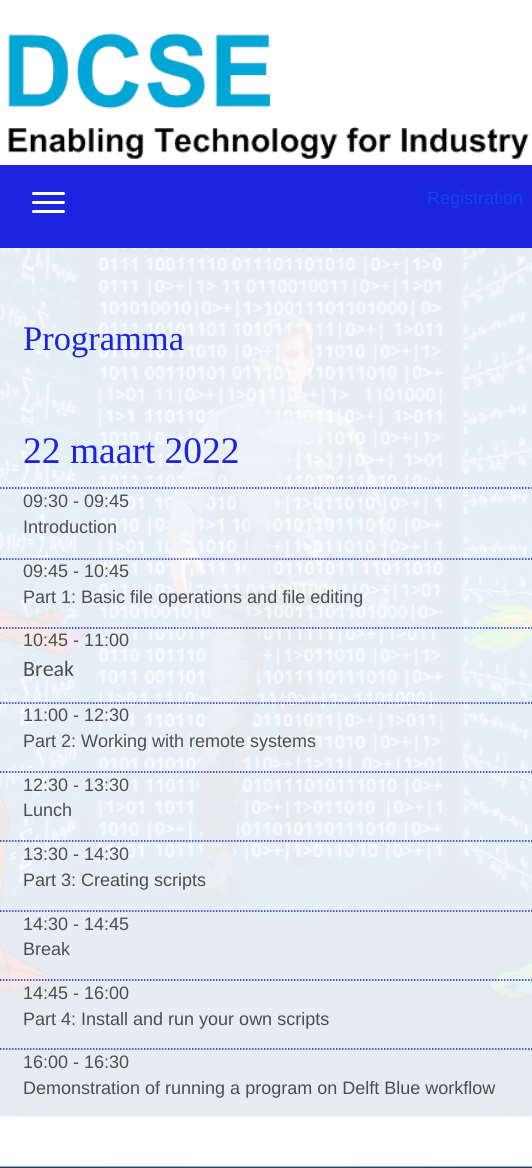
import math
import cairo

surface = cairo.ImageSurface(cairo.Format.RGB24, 532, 1168)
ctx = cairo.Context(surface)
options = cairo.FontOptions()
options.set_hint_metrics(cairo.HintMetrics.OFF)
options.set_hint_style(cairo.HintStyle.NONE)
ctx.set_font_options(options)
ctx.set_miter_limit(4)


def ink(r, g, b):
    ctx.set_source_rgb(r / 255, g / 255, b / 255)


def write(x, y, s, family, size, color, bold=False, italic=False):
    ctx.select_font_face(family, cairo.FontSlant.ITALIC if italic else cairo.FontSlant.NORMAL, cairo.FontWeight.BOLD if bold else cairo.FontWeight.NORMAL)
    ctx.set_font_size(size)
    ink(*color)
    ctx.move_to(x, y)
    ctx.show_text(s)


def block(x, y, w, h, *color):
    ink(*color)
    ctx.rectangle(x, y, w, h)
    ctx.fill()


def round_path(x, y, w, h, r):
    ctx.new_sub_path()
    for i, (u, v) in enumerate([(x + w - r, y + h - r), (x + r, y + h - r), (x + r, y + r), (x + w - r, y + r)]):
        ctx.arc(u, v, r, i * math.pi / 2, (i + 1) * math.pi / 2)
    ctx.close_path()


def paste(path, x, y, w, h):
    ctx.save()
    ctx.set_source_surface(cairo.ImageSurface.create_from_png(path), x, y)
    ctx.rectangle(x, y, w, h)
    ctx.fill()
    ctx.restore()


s1 = dict(family="Liberation Sans", size=18, color=(14, 71, 240))
s2 = dict(family="Liberation Serif", size=34.5, color=(27, 36, 222))
s3 = dict(family="Liberation Serif", size=37.5, color=(27, 36, 222))
s4 = dict(family="Liberation Sans", size=18, color=(77, 77, 77))
s5 = dict(family="Carlito", size=22, color=(77, 77, 77))

ink(255, 255, 255)
ctx.paint()
paste("pic1.png", 0, 248, 532, 920)
paste("pic2.png", 0, 0, 532, 165)
block(0, 165, 532, 83, 27, 36, 222)
ink(255, 255, 255)
round_path(32, 192, 33, 3, 1.5)
ctx.fill()
round_path(32, 201, 33, 3, 1.5)
ctx.fill()
round_path(32, 210, 33, 3, 1.5)
ctx.fill()
write(427, 204, "Registration", **s1)
ctx.set_source_rgba(1, 1, 1, 0.9)
ctx.rectangle(0, 248, 532, 869)
ctx.fill()
write(23, 350, "Programma", **s2)
write(23, 463, "22 maart 2022", **s3)
ctx.new_path()
ctx.move_to(0, 488)
ctx.line_to(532.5, 488)
ctx.set_line_width(1.5)
ctx.set_dash([1.5, 1.5])
ctx.stroke()
write(23, 507, "09:30 - 09:45", **s4)
write(23, 533, "Introduction", **s4)
ctx.new_path()
ctx.move_to(0, 559)
ctx.line_to(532.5, 559)
ink(27, 36, 222)
ctx.stroke()
write(23, 577, "09:45 - 10:45", **s4)
write(23, 603, "Part 1: Basic file operations and file editing", **s4)
ctx.new_path()
ctx.move_to(0, 628)
ctx.line_to(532.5, 628)
ink(27, 36, 222)
ctx.stroke()
write(23, 646, "10:45 - 11:00", **s4)
write(23, 676, "Break", **s5)
ctx.new_path()
ctx.move_to(0, 703)
ctx.line_to(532.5, 703)
ink(27, 36, 222)
ctx.stroke()
write(23, 721, "11:00 - 12:30", **s4)
write(23, 747, "Part 2: Working with remote systems", **s4)
ctx.new_path()
ctx.move_to(0, 772)
ctx.line_to(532.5, 772)
ink(27, 36, 222)
ctx.stroke()
write(23, 791, "12:30 - 13:30", **s4)
write(23, 816, "Lunch", **s4)
ctx.new_path()
ctx.move_to(0, 841)
ctx.line_to(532.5, 841)
ink(27, 36, 222)
ctx.stroke()
write(23, 860, "13:30 - 14:30", **s4)
write(23, 886, "Part 3: Creating scripts", **s4)
ctx.new_path()
ctx.move_to(0, 911)
ctx.line_to(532.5, 911)
ink(27, 36, 222)
ctx.stroke()
write(23, 930, "14:30 - 14:45", **s4)
write(23, 955, "Break", **s4)
ctx.new_path()
ctx.move_to(0, 980)
ctx.line_to(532.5, 980)
ink(27, 36, 222)
ctx.stroke()
write(23, 999, "14:45 - 16:00", **s4)
write(23, 1025, "Part 4: Install and run your own scripts", **s4)
ctx.new_path()
ctx.move_to(0, 1049)
ctx.line_to(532.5, 1049)
ink(27, 36, 222)
ctx.stroke()
write(23, 1068, "16:00 - 16:30", **s4)
write(23, 1094, "Demonstration of running a program on Delft Blue workflow", **s4)
surface.write_to_png("screenshot.png")
